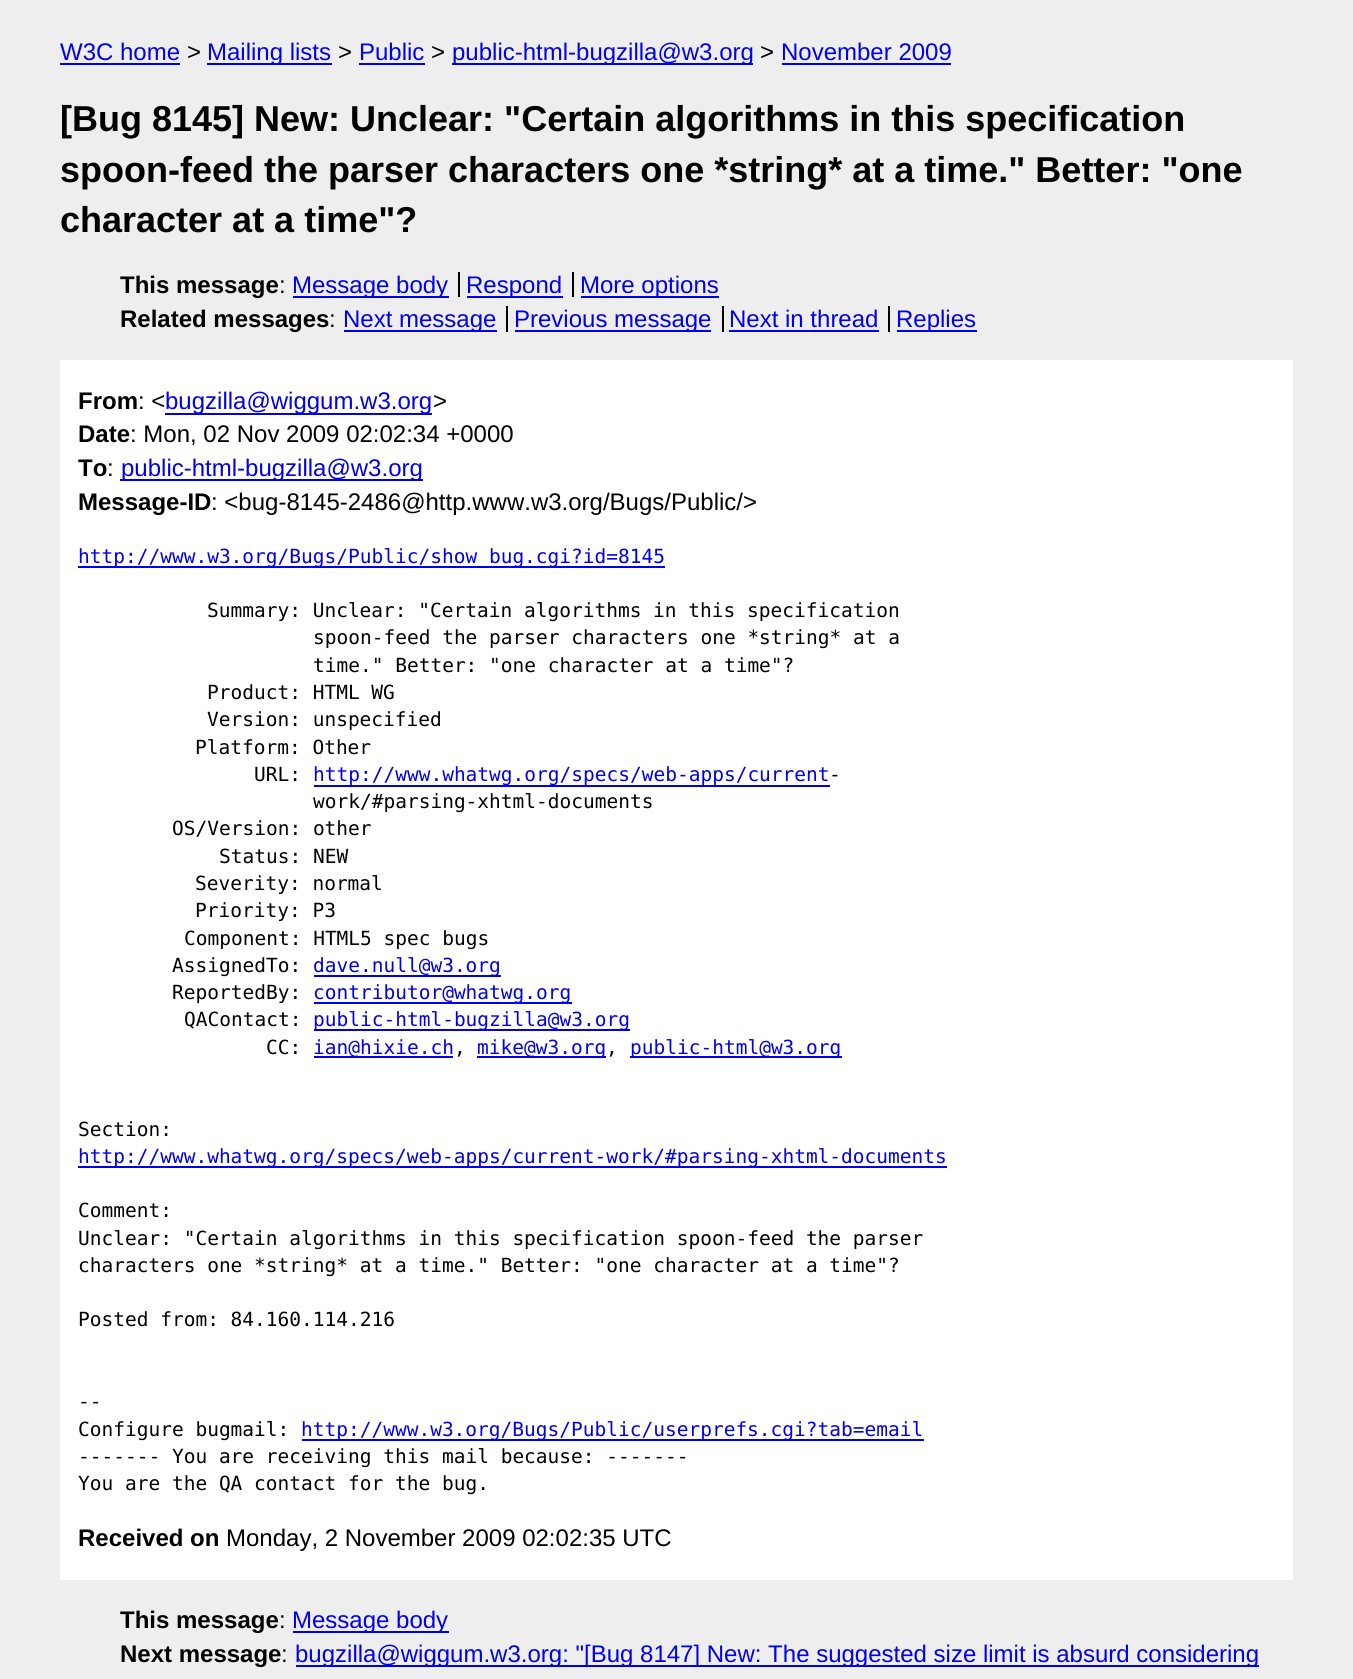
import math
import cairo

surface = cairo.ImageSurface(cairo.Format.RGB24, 1353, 1679)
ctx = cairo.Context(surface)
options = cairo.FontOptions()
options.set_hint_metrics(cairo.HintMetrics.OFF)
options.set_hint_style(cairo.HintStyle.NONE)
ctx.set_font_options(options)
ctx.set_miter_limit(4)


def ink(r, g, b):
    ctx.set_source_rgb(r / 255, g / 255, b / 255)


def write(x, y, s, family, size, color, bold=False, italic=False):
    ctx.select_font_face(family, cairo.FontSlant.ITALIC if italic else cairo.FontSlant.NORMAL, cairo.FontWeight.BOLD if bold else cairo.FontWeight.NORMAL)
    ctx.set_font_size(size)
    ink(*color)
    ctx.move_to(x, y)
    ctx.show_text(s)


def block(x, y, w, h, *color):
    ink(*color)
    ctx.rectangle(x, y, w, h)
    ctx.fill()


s1 = dict(family="Liberation Sans", size=24, color=(0, 0, 238))
s2 = dict(family="Liberation Sans", size=24, color=(0, 0, 0))
s3 = dict(family="Liberation Sans", size=36, color=(0, 0, 0), bold=True)
s4 = dict(family="Liberation Sans", size=24, color=(0, 0, 0), bold=True)
s5 = dict(family="DejaVu Sans Mono", size=19.5, color=(0, 0, 238))
s6 = dict(family="DejaVu Sans Mono", size=19.5, color=(0, 0, 0))

ink(238, 238, 238)
ctx.paint()
write(60, 60, "W3C home", **s1)
block(60, 63, 120, 2, 0, 0, 238)
write(187, 60, ">", **s2)
block(207, 63, 125, 2, 0, 0, 238)
write(207, 60, "Mailing lists", **s1)
write(338, 60, ">", **s2)
write(359, 60, "Public", **s1)
block(359, 63, 66, 2, 0, 0, 238)
write(431, 60, ">", **s2)
block(452, 63, 301, 2, 0, 0, 238)
write(452, 60, "public-html-bugzilla@w3.org", **s1)
write(760, 60, ">", **s2)
write(781, 60, "November 2009", **s1)
block(782, 63, 169, 2, 0, 0, 238)
write(60, 131, "[Bug 8145] New: Unclear: \"Certain algorithms in this specification", **s3)
write(60, 182, "spoon-feed the parser characters one *string* at a time.\" Better: \"one", **s3)
write(60, 232, "character at a time\"?", **s3)
write(120, 293, "This message", **s4)
write(279, 293, ":", **s2)
block(293, 296, 156, 2, 0, 0, 238)
write(292, 293, "Message body", **s1)
block(467, 296, 96, 2, 0, 0, 238)
write(466, 293, "Respond", **s1)
block(458, 272, 2, 25, 0, 0, 0)
block(581, 296, 138, 2, 0, 0, 238)
write(580, 293, "More options", **s1)
block(572, 272, 2, 25, 0, 0, 0)
write(120, 327, "Related messages", **s4)
write(329, 327, ":", **s2)
block(344, 330, 153, 2, 0, 0, 238)
write(343, 327, "Next message", **s1)
block(515, 330, 196, 2, 0, 0, 238)
write(514, 327, "Previous message", **s1)
block(506, 306, 2, 26, 0, 0, 0)
write(729, 327, "Next in thread", **s1)
block(722, 306, 2, 26, 0, 0, 0)
block(888, 306, 2, 26, 0, 0, 0)
block(729, 330, 150, 2, 0, 0, 238)
block(897, 330, 80, 2, 0, 0, 238)
write(896, 327, "Replies", **s1)
block(60, 360, 1233, 1220, 255, 255, 255)
write(78, 409, "From", **s4)
write(138, 409, ": <", **s2)
block(165, 413, 267, 2, 0, 0, 238)
write(165, 409, "bugzilla@wiggum.w3.org", **s1)
write(433, 409, ">", **s2)
write(78, 442, "Date", **s4)
write(130, 442, ": Mon, 02 Nov 2009 02:02:34 +0000", **s2)
write(78, 476, "To", **s4)
write(107, 476, ":", **s2)
block(120, 479, 303, 2, 0, 0, 238)
write(121, 476, "public-html-bugzilla@w3.org", **s1)
write(78, 510, "Message-ID", **s4)
write(211, 510, ": <bug-8145-2486@http.www.w3.org/Bugs/Public/>", **s2)
block(78, 566, 587, 2, 0, 0, 238)
write(78, 563, "http://www.w3.org/Bugs/Public/show_bug.cgi?id=8145", **s5)
write(207, 617, "Summary: Unclear: \"Certain algorithms in this specification", **s6)
write(313, 644, "spoon-feed the parser characters one *string* at a", **s6)
write(313, 672, "time.\" Better: \"one character at a time\"?", **s6)
write(207, 699, "Product: HTML WG", **s6)
write(207, 726, "Version: unspecified", **s6)
write(195, 754, "Platform: Other", **s6)
write(254, 781, "URL:", **s6)
block(314, 785, 516, 2, 0, 0, 238)
write(313, 781, "http://www.whatwg.org/specs/web-apps/current", **s5)
write(829, 781, "-", **s6)
write(313, 808, "work/#parsing-xhtml-documents", **s6)
write(172, 835, "OS/Version: other", **s6)
write(219, 863, "Status: NEW", **s6)
write(195, 890, "Severity: normal", **s6)
write(195, 917, "Priority: P3", **s6)
write(184, 945, "Component: HTML5 spec bugs", **s6)
write(172, 972, "AssignedTo:", **s6)
block(314, 975, 187, 2, 0, 0, 238)
write(313, 972, "dave.null@w3.org", **s5)
write(172, 999, "ReportedBy:", **s6)
block(314, 1002, 258, 2, 0, 0, 238)
write(313, 999, "contributor@whatwg.org", **s5)
write(184, 1026, "QAContact:", **s6)
block(314, 1029, 316, 2, 0, 0, 238)
write(313, 1026, "public-html-bugzilla@w3.org", **s5)
write(266, 1054, "CC:", **s6)
block(314, 1056, 139, 2, 0, 0, 238)
write(313, 1054, "ian@hixie.ch", **s5)
write(454, 1054, ",", **s6)
block(477, 1056, 129, 2, 0, 0, 238)
write(477, 1054, "mike@w3.org", **s5)
write(606, 1054, ",", **s6)
block(630, 1056, 212, 2, 0, 0, 238)
write(630, 1054, "public-html@w3.org", **s5)
write(78, 1136, "Section:", **s6)
block(78, 1166, 869, 2, 0, 0, 238)
write(78, 1163, "http://www.whatwg.org/specs/web-apps/current-work/#parsing-xhtml-documents", **s5)
write(78, 1217, "Comment:", **s6)
write(78, 1245, "Unclear: \"Certain algorithms in this specification spoon-feed the parser", **s6)
write(78, 1272, "characters one *string* at a time.\" Better: \"one character at a time\"?", **s6)
write(78, 1326, "Posted from: 84.160.114.216", **s6)
write(78, 1408, "--", **s6)
write(78, 1436, "Configure bugmail:", **s6)
block(302, 1439, 622, 2, 0, 0, 238)
write(301, 1436, "http://www.w3.org/Bugs/Public/userprefs.cgi?tab=email", **s5)
write(78, 1463, "------- You are receiving this mail because: -------", **s6)
write(78, 1490, "You are the QA contact for the bug.", **s6)
write(78, 1546, "Received on", **s4)
write(226, 1546, "Monday, 2 November 2009 02:02:35 UTC", **s2)
write(120, 1628, "This message", **s4)
write(279, 1628, ":", **s2)
block(293, 1631, 156, 2, 0, 0, 238)
write(292, 1628, "Message body", **s1)
write(120, 1662, "Next message", **s4)
write(281, 1662, ":", **s2)
block(296, 1665, 963, 2, 0, 0, 238)
write(295, 1662, "bugzilla@wiggum.w3.org: \"[Bug 8147] New: The suggested size limit is absurd considering", **s1)
surface.write_to_png("screenshot.png")
